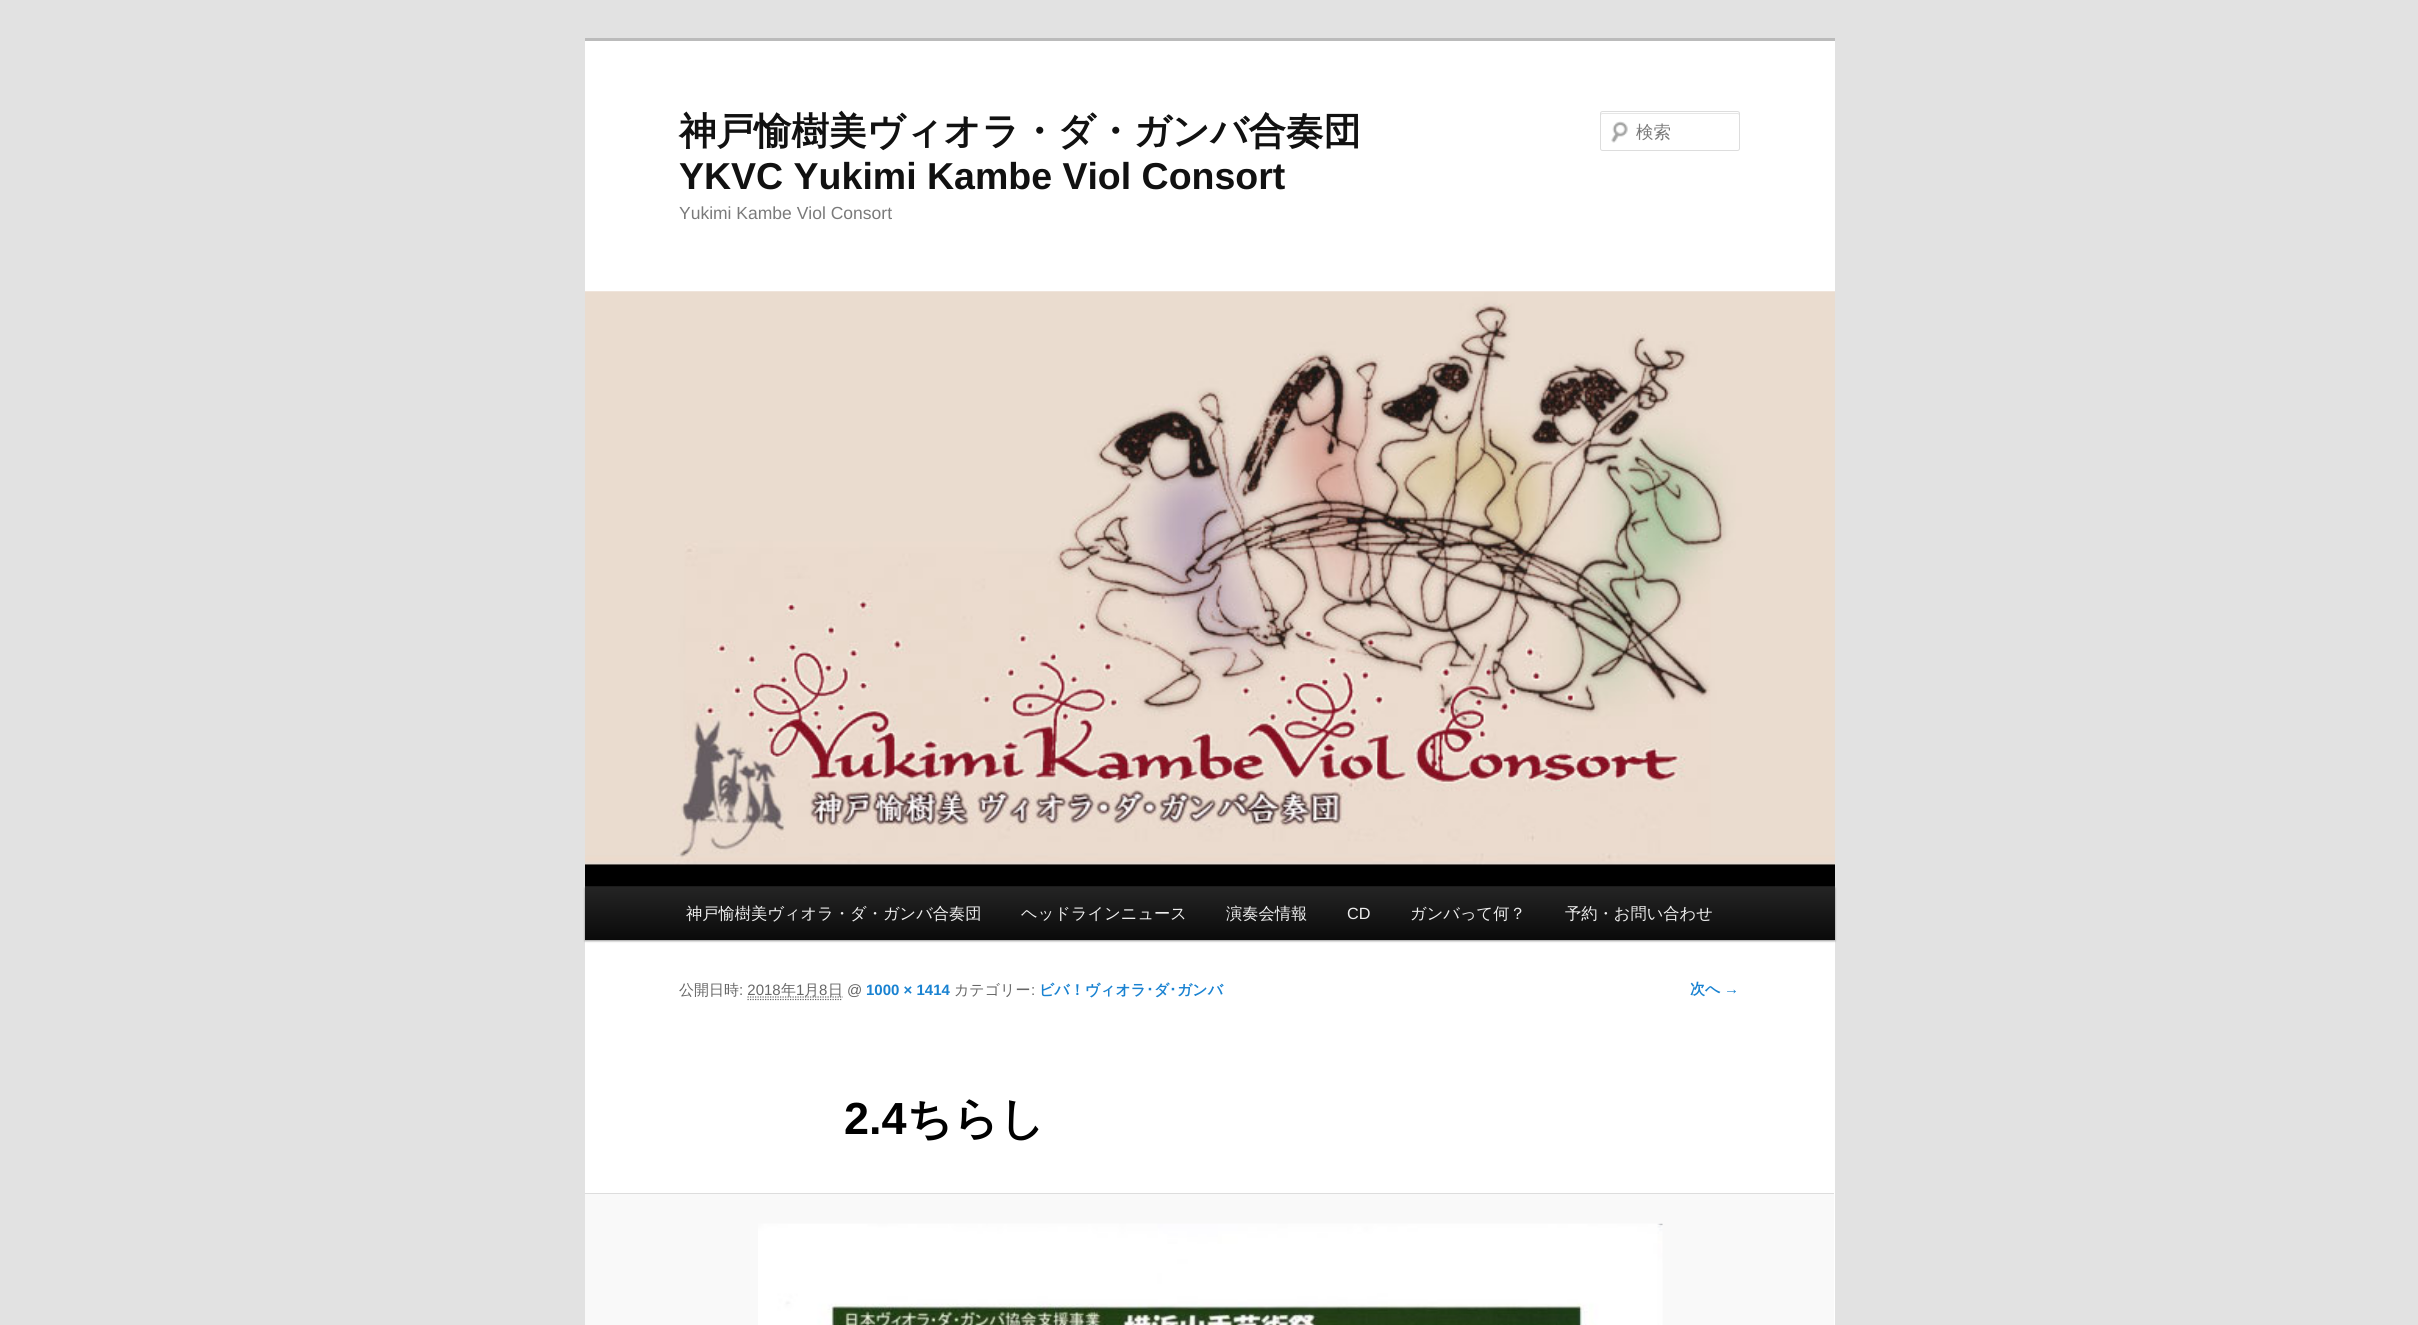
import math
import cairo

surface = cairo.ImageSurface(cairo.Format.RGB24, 2418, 1325)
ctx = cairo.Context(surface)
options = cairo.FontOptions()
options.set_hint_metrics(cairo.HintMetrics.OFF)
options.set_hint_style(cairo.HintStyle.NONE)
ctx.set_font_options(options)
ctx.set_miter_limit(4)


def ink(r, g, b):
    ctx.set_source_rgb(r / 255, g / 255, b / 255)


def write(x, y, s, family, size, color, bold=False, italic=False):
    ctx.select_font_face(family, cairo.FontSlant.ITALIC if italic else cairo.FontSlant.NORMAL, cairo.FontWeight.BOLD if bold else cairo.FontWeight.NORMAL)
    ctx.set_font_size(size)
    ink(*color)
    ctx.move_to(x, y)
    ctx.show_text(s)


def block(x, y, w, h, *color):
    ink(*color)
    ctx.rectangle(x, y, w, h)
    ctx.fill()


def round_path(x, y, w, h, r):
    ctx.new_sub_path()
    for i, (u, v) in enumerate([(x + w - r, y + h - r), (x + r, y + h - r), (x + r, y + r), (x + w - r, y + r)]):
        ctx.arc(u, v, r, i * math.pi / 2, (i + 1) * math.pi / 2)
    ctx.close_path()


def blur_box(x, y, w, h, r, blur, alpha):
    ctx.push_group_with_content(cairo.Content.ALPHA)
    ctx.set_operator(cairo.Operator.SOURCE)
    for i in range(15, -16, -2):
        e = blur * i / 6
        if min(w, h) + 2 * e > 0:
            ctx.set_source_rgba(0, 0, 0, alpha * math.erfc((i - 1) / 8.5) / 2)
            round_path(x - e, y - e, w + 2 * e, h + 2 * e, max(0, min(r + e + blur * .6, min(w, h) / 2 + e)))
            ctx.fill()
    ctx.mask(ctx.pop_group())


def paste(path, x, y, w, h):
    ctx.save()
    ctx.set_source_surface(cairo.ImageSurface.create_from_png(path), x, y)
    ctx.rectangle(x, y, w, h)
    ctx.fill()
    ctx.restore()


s1 = dict(family="WenQuanYi Zen Hei", size=37.5, color=(17, 17, 17), bold=True)
s2 = dict(family="Liberation Sans", size=37.5, color=(17, 17, 17), bold=True)
s3 = dict(family="Liberation Sans", size=17.5, color=(122, 122, 122))
s4 = dict(family="WenQuanYi Zen Hei Medium", size=17.5, color=(122, 122, 122))
s5 = dict(family="WenQuanYi Zen Hei Medium", size=16.25, color=(238, 238, 238))
s6 = dict(family="Liberation Sans", size=16.25, color=(238, 238, 238))
s7 = dict(family="WenQuanYi Zen Hei Medium", size=15, color=(102, 102, 102))
s8 = dict(family="Liberation Sans", size=15, color=(102, 102, 102))
s9 = dict(family="Liberation Sans", size=15, color=(25, 130, 209), bold=True)
s10 = dict(family="WenQuanYi Zen Hei", size=15, color=(25, 130, 209), bold=True)
s11 = dict(family="IPAPGothic", size=15, color=(25, 130, 209), bold=True)
s12 = dict(family="Liberation Sans", size=45, color=(0, 0, 0), bold=True)
s13 = dict(family="WenQuanYi Zen Hei", size=45, color=(0, 0, 0), bold=True)

ink(226, 226, 226)
ctx.paint()
block(585, 41, 1250, 1284, 255, 255, 255)
block(585, 38, 1250, 3, 187, 187, 187)
write(679, 144, "神戸愉樹美ヴィオラ・ダ・ガンバ合奏団", **s1)
write(679, 189, "YKVC Yukimi Kambe Viol Consort", **s2)
write(679, 219, "Yukimi Kambe Viol Consort", **s3)
paste("pic1.png", 1611, 121, 17, 22)
ink(230, 230, 230)
ctx.new_path()
ctx.move_to(1602, 114)
ctx.line_to(1738, 114)
ctx.line_to(1739, 115)
ctx.curve_to(1739, 114, 1739, 113, 1738, 113)
ctx.line_to(1602, 113)
ctx.curve_to(1601, 113, 1601, 114, 1601, 115)
ctx.close_path()
ctx.fill()
round_path(1600.5, 111.5, 139, 39, 2)
ink(221, 221, 221)
ctx.set_line_width(1)
ctx.stroke()
write(1636, 138, "検索", **s4)
ink(0, 0, 0)
blur_box(585, 888, 1250, 53, 0, 1, 0.4)
gradient = cairo.LinearGradient(1210, 886, 1210, 940)
gradient.add_color_stop_rgba(0, 0.145, 0.145, 0.145, 1)
gradient.add_color_stop_rgba(1, 0.039, 0.039, 0.039, 1)
ctx.set_source(gradient)
ctx.rectangle(585, 886, 1250, 54)
ctx.fill()
paste("pic2.png", 585, 291, 1250, 596)
write(686, 919, "神戸愉樹美ヴィオラ・ダ・ガンバ合奏団", **s5)
write(1021, 919, "ヘッドラインニュース", **s5)
write(1226, 919, "演奏会情報", **s5)
write(1347, 919, "CD", **s6)
write(1410, 919, "ガンバって何？", **s5)
write(1565, 919, "予約・お問い合わせ", **s5)
write(679, 995, "公開日時", **s7)
write(739, 995, ": 2018", **s8)
ctx.new_path()
ctx.move_to(747.5, 997)
ctx.line_to(843, 997)
ctx.set_line_width(1.2)
ctx.set_dash([1.25, 1.25])
ctx.stroke()
write(781, 995, "年", **s7)
write(796, 995, "1", **s8)
write(804, 995, "月", **s7)
ctx.new_path()
ctx.move_to(747.5, 999.5)
ctx.line_to(842.5, 999.5)
ctx.stroke()
write(819, 995, "8", **s8)
write(828, 995, "日", **s7)
write(847, 995, "@", **s8)
write(866, 995, "1000 × 1414", **s9)
write(954, 995, "カテゴリー", **s7)
write(1031, 995, ":", **s8)
write(1039, 995, "ビバ！ヴィオラ", **s10)
write(1146, 995, "･", **s11)
write(1154, 995, "ダ", **s10)
write(1169, 995, "･", **s11)
write(1177, 995, "ガンバ", **s10)
write(844, 1134, "2.4", **s12)
write(907, 1134, "ちらし", **s13)
block(585, 1194, 1249, 131, 249, 249, 249)
block(585, 1193, 1249, 1, 221, 221, 221)
paste("pic3.png", 758, 1223, 905, 102)
write(1690, 994, "次へ", **s10)
write(1724, 994, "→", **s9)
surface.write_to_png("screenshot.png")
